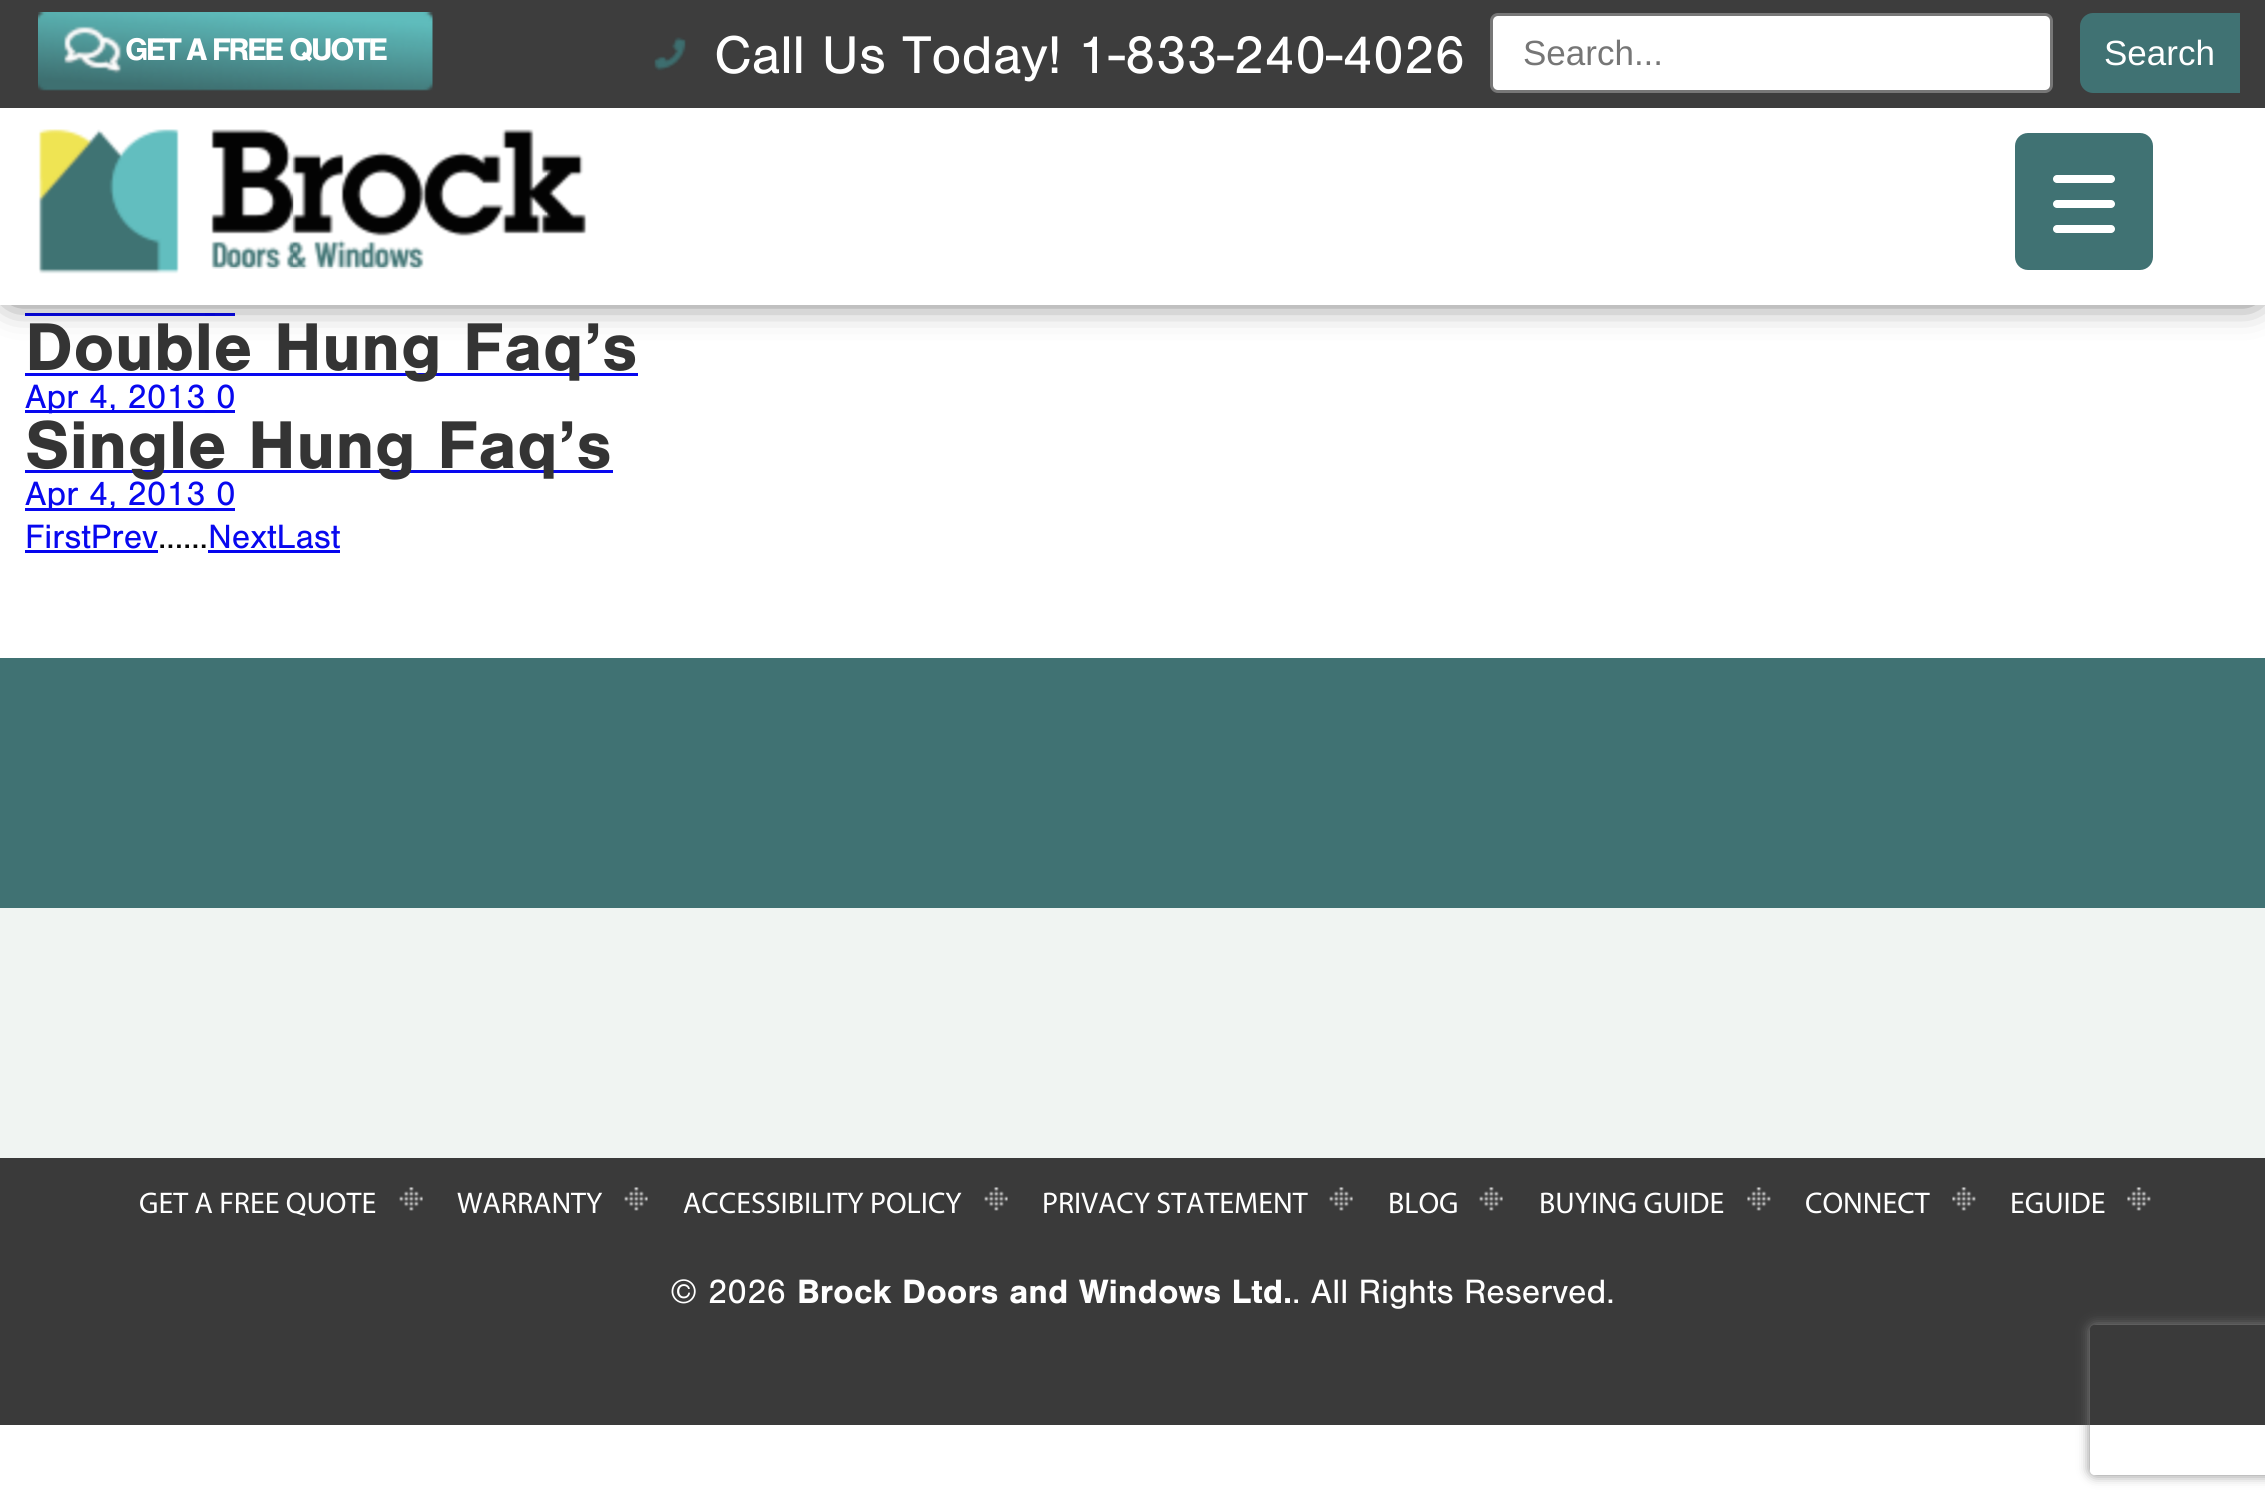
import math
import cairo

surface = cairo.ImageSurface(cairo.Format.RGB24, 2265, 1508)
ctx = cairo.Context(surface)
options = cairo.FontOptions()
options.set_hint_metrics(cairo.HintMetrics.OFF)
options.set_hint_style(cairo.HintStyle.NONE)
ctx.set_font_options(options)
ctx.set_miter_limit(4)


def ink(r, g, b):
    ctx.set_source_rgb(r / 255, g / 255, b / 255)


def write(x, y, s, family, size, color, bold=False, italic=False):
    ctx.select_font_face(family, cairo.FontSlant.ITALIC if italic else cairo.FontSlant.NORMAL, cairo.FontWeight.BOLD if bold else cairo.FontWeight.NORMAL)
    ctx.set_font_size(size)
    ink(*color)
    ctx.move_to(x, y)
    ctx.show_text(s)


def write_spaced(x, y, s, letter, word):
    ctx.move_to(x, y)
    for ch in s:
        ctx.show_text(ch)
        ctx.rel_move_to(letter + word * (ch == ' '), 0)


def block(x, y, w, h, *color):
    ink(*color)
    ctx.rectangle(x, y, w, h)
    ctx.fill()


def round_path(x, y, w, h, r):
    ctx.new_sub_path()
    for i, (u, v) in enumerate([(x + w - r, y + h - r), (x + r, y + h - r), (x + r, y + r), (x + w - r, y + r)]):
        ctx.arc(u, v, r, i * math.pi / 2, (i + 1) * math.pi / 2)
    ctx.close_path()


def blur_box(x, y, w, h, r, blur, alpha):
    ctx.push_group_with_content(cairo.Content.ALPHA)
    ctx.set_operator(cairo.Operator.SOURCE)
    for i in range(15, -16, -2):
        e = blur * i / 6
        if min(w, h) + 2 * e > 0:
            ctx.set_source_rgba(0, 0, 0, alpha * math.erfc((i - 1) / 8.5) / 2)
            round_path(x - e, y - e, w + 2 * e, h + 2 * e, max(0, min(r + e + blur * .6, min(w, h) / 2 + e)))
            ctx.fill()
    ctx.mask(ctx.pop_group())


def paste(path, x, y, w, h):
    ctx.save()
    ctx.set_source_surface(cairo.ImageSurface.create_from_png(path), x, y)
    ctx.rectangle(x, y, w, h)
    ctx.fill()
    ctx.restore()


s1 = dict(family="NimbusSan", size=55, color=(255, 255, 255))
s2 = dict(family="Liberation Sans", size=35, color=(118, 118, 118))
s3 = dict(family="Liberation Sans", size=35, color=(255, 255, 255))
s4 = dict(family="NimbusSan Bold", size=70, color=(52, 52, 52), bold=True)
s5 = dict(family="NimbusSan", size=35, color=(8, 8, 239))
s6 = dict(family="NimbusSan", size=35, color=(5, 5, 5))
s7 = dict(family="Myriad", size=30, color=(255, 255, 255))
s8 = dict(family="NimbusSan", size=35, color=(255, 255, 255))
s9 = dict(family="NimbusSan Bold", size=35, color=(255, 255, 255), bold=True)

ink(255, 255, 255)
ctx.paint()
block(25, 313, 180, 3, 8, 8, 239)
block(205, 313, 10, 3, 5, 5, 238)
block(215, 313, 20, 3, 8, 8, 239)
ink(3, 3, 3)
blur_box(13, 13, 2240, 280, 0, 19, 1)
block(0, 108, 2265, 197, 255, 255, 255)
block(0, 0, 2265, 108, 61, 61, 61)
paste("pic1.png", 38, 12, 395, 79)
ctx.select_font_face("NimbusSan Bold", cairo.FontSlant.NORMAL, cairo.FontWeight.BOLD)
ctx.set_font_size(32.5)
ink(255, 255, 255)
write_spaced(125, 60, "GET A FREE QUOTE", -2.5, 0)
paste("pic2.png", 654, 37, 32, 34)
write(714, 73, "Call Us Today! 1-833-240-4026", **s1)
round_path(1491.5, 14.5, 560, 77, 6.5)
ctx.fill_preserve()
ink(119, 119, 119)
ctx.set_line_width(3)
ctx.stroke()
write(1523, 65, "Search...", **s2)
ink(64, 114, 115)
ctx.new_path()
ctx.move_to(2093, 13)
ctx.line_to(2240, 13)
ctx.line_to(2240, 93)
ctx.line_to(2093, 93)
ctx.curve_to(2086, 93, 2080, 87, 2080, 80)
ctx.line_to(2080, 26)
ctx.curve_to(2080, 19, 2086, 13, 2093, 13)
ctx.close_path()
ctx.fill()
write(2104, 65, "Search", **s3)
paste("pic3.png", 38, 129, 549, 145)
ink(64, 114, 115)
round_path(2015, 133, 138, 137, 13)
ctx.fill()
ink(255, 255, 255)
round_path(2053, 200, 62, 8, 4)
ctx.fill()
round_path(2053, 175, 62, 8, 4)
ctx.fill()
round_path(2053, 225, 62, 8, 4)
ctx.fill()
block(25, 373, 613, 3, 8, 8, 239)
write(25, 370, "Double Hung Faq’s", **s4)
block(25, 410, 180, 3, 8, 8, 239)
block(205, 410, 10, 3, 5, 5, 238)
write(25, 408, "Apr 4, 2013 0", **s5)
block(215, 410, 20, 3, 8, 8, 239)
block(25, 470, 588, 3, 8, 8, 239)
write(25, 468, "Single Hung Faq’s", **s4)
block(25, 508, 180, 3, 8, 8, 239)
block(205, 508, 10, 3, 5, 5, 238)
write(25, 505, "Apr 4, 2013 0", **s5)
block(215, 508, 20, 3, 8, 8, 239)
write(25, 548, "FirstPrev", **s5)
block(25, 550, 133, 3, 5, 5, 238)
write(158, 548, "......", **s6)
write(208, 548, "NextLast", **s5)
block(208, 550, 132, 3, 5, 5, 238)
block(0, 658, 2265, 250, 64, 114, 115)
block(0, 908, 2265, 250, 240, 244, 242)
block(0, 1158, 2265, 267, 58, 58, 58)
paste("pic4.png", 399, 1187, 24, 24)
write(139, 1213, "GET A FREE QUOTE", **s7)
paste("pic4.png", 624, 1187, 24, 24)
write(457, 1213, "WARRANTY", **s7)
paste("pic4.png", 984, 1187, 24, 24)
write(683, 1213, "ACCESSIBILITY POLICY", **s7)
paste("pic4.png", 1329, 1187, 24, 24)
write(1042, 1213, "PRIVACY STATEMENT", **s7)
paste("pic4.png", 1479, 1187, 24, 24)
write(1388, 1213, "BLOG", **s7)
paste("pic5.png", 1747, 1187, 24, 24)
write(1539, 1213, "BUYING GUIDE", **s7)
paste("pic5.png", 1952, 1187, 24, 24)
write(1805, 1213, "CONNECT", **s7)
paste("pic6.png", 2127, 1187, 24, 24)
write(2010, 1213, "EGUIDE", **s7)
write(670, 1303, "© 2026", **s8)
write(797, 1303, "Brock Doors and Windows Ltd.", **s9)
write(1292, 1303, ". All Rights Reserved.", **s8)
ctx.save()
ctx.set_fill_rule(cairo.FillRule.EVEN_ODD)
ctx.new_path()
ctx.move_to(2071, 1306)
ctx.line_to(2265, 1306)
ctx.line_to(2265, 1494)
ctx.line_to(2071, 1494)
ctx.close_path()
ctx.move_to(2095, 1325)
ctx.line_to(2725, 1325)
ctx.curve_to(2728, 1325, 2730, 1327, 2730, 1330)
ctx.line_to(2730, 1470)
ctx.curve_to(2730, 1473, 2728, 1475, 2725, 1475)
ctx.line_to(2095, 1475)
ctx.curve_to(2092, 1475, 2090, 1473, 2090, 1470)
ctx.line_to(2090, 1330)
ctx.curve_to(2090, 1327, 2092, 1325, 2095, 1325)
ctx.close_path()
ctx.clip()
ink(129, 129, 129)
blur_box(2090, 1325, 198, 150, 5, 6, 1)
ctx.restore()
surface.write_to_png("screenshot.png")
